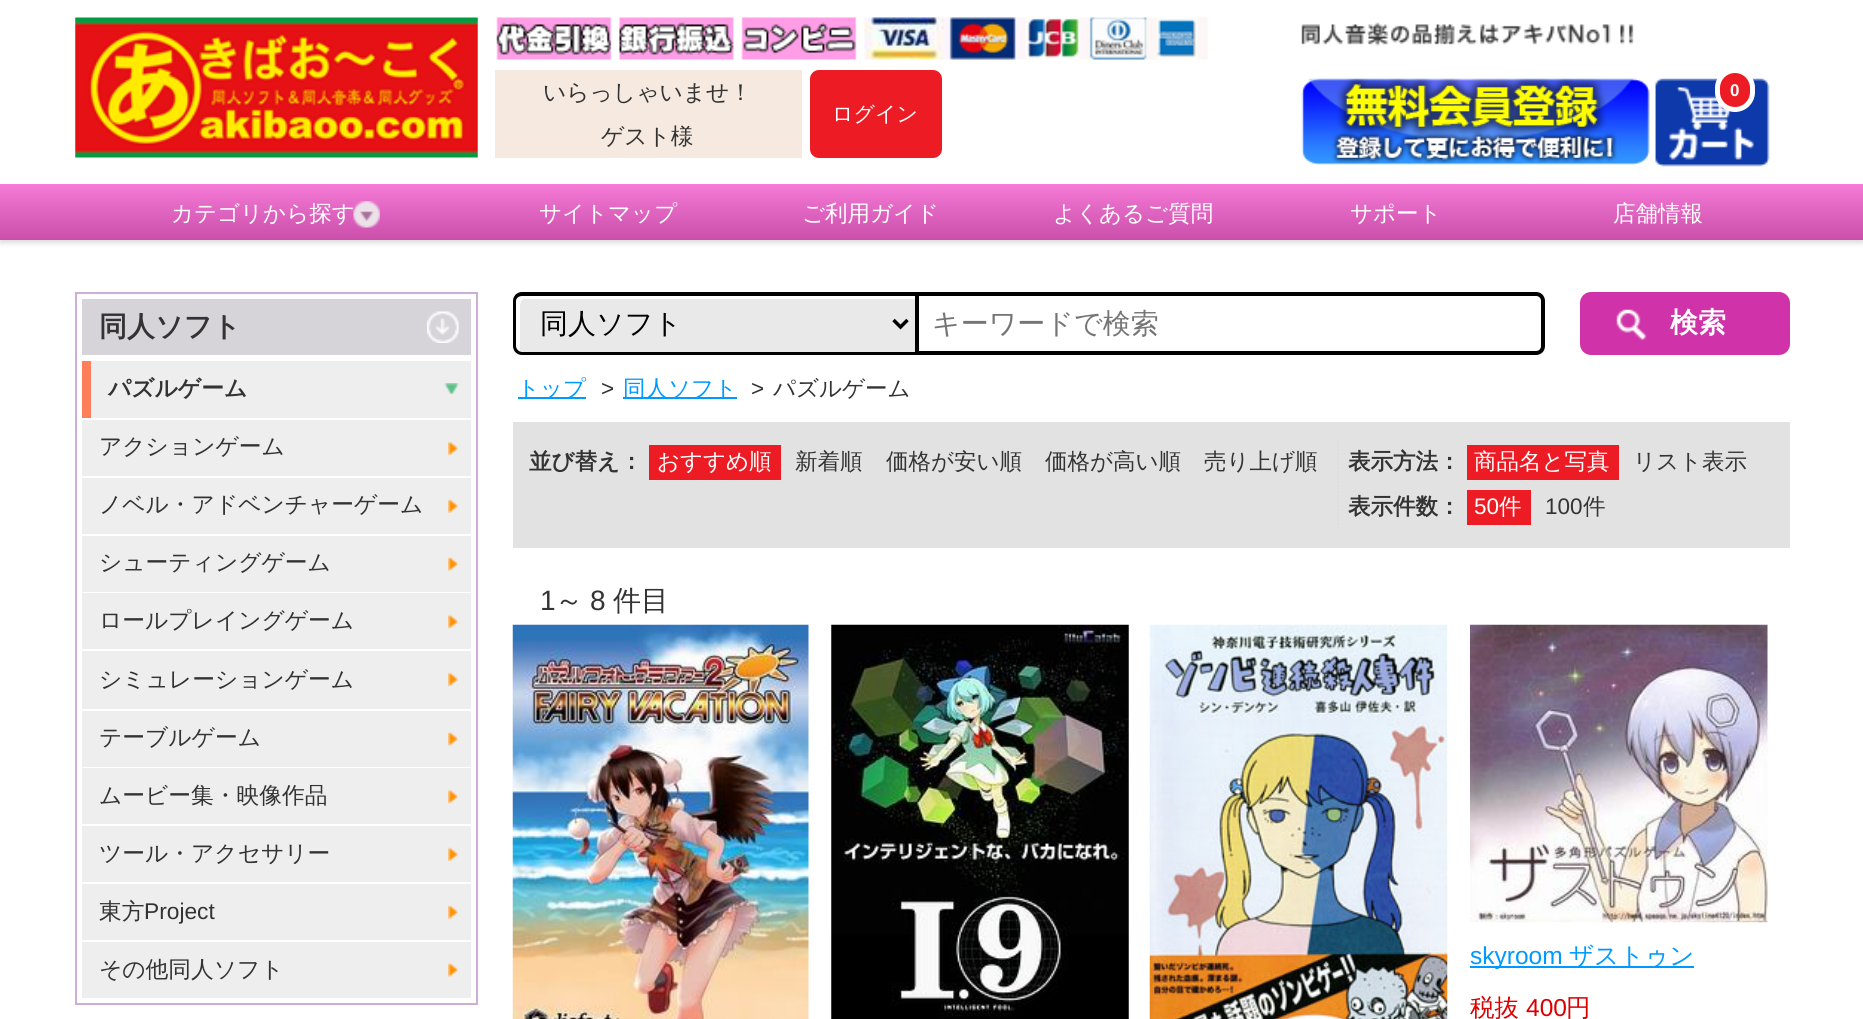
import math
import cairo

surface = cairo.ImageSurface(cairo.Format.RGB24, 1863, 1019)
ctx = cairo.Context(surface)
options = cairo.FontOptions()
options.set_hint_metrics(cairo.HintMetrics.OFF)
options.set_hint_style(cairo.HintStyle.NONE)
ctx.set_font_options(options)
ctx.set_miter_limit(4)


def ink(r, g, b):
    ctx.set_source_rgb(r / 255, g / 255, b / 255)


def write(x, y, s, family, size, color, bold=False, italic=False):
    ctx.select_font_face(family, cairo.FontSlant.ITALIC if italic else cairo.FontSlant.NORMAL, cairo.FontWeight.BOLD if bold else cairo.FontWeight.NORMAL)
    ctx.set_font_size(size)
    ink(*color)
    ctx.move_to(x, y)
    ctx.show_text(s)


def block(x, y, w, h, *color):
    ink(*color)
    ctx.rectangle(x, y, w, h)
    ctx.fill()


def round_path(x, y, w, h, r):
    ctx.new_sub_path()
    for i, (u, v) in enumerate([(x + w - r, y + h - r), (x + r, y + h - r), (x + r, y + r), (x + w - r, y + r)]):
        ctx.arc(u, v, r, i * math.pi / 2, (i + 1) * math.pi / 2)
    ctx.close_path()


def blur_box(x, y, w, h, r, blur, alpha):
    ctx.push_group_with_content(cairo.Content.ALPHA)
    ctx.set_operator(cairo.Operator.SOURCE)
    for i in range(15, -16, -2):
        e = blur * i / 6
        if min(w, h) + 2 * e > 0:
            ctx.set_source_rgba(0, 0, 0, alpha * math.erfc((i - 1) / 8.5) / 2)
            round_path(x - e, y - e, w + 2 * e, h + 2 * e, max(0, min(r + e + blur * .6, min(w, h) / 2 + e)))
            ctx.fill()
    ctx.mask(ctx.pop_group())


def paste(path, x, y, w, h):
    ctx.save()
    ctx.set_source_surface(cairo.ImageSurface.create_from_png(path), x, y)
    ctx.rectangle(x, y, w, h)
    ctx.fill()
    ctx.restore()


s1 = dict(family="WenQuanYi Zen Hei Medium", size=22.75, color=(51, 51, 51))
s2 = dict(family="WenQuanYi Zen Hei Medium", size=21, color=(255, 255, 255))
s3 = dict(family="Liberation Sans", size=17, color=(255, 255, 255), bold=True)
s4 = dict(family="WenQuanYi Zen Hei Medium", size=22.5, color=(255, 255, 255))
s5 = dict(family="WenQuanYi Zen Hei", size=28, color=(51, 51, 51), bold=True)
s6 = dict(family="WenQuanYi Zen Hei", size=22.75, color=(51, 51, 51), bold=True)
s7 = dict(family="Liberation Sans", size=22.75, color=(51, 51, 51))
s8 = dict(family="WenQuanYi Zen Hei Medium", size=28, color=(0, 0, 0))
s9 = dict(family="WenQuanYi Zen Hei Medium", size=28, color=(117, 117, 117))
s10 = dict(family="WenQuanYi Zen Hei", size=28, color=(255, 255, 255), bold=True)
s11 = dict(family="WenQuanYi Zen Hei Medium", size=22.5, color=(0, 153, 255))
s12 = dict(family="Liberation Sans", size=22.5, color=(51, 51, 51))
s13 = dict(family="WenQuanYi Zen Hei Medium", size=22.5, color=(51, 51, 51))
s14 = dict(family="WenQuanYi Zen Hei", size=22.5, color=(51, 51, 51), bold=True)
s15 = dict(family="Liberation Sans", size=22.5, color=(255, 255, 255))
s16 = dict(family="Liberation Sans", size=28, color=(51, 51, 51))
s17 = dict(family="WenQuanYi Zen Hei Medium", size=28, color=(51, 51, 51))
s18 = dict(family="Liberation Sans", size=24.5, color=(0, 153, 255))
s19 = dict(family="WenQuanYi Zen Hei Medium", size=24.5, color=(0, 153, 255))
s20 = dict(family="WenQuanYi Zen Hei Medium", size=24.5, color=(219, 0, 0))
s21 = dict(family="Liberation Sans", size=24.5, color=(219, 0, 0))

ink(255, 255, 255)
ctx.paint()
paste("pic1.png", 75, 17, 403, 141)
paste("pic2.png", 496, 17, 712, 43)
block(495, 70, 307, 88, 246, 234, 224)
write(543, 100, "いらっしゃいませ！", **s1)
write(601, 144, "ゲスト様", **s1)
ink(237, 28, 36)
round_path(810, 70, 132, 88, 9)
ctx.fill()
write(832, 121, "ログイン", **s2)
paste("pic3.png", 1301, 22, 333, 24)
paste("pic4.png", 1301, 78, 349, 87)
paste("pic5.png", 1655, 78, 115, 89)
ink(237, 28, 36)
round_path(1717.5, 70.5, 35, 39, 17.5)
ctx.fill_preserve()
ink(255, 255, 255)
ctx.set_line_width(5)
ctx.stroke()
write(1730, 96, "0", **s3)
ink(219, 219, 219)
blur_box(0, 187, 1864, 56, 0, 2.5, 1)
gradient = cairo.LinearGradient(932, 184, 932, 240)
gradient.add_color_stop_rgba(0, 0.961, 0.482, 0.843, 1)
gradient.add_color_stop_rgba(1, 0.792, 0.306, 0.667, 1)
ctx.set_source(gradient)
ctx.rectangle(0, 184, 1863, 56)
ctx.fill()
write(171, 221, "カテゴリから探す", **s4)
paste("pic6.png", 353, 201, 27, 27)
write(539, 221, "サイトマップ", **s4)
write(802, 221, "ご利用ガイド", **s4)
write(1053, 221, "よくあるご質問", **s4)
write(1350, 221, "サポート", **s4)
write(1613, 221, "店舗情報", **s4)
ctx.rectangle(76, 293, 401, 711)
ink(204, 174, 215)
ctx.set_line_width(2)
ctx.stroke()
block(82, 299, 389, 56, 215, 212, 217)
paste("pic7.png", 427, 311, 32, 32)
write(99, 336, "同人ソフト", **s5)
block(91, 361, 380, 57, 238, 238, 238)
paste("pic8.png", 444, 383, 15, 11)
block(82, 361, 9, 57, 255, 126, 91)
write(108, 396, "パズルゲーム", **s6)
block(82, 420, 389, 56, 238, 238, 238)
paste("pic9.png", 448, 441, 11, 14)
write(99, 454, "アクションゲーム", **s1)
block(82, 478, 389, 56, 238, 238, 238)
paste("pic10.png", 448, 499, 11, 14)
write(99, 512, "ノベル・アドベンチャーゲーム", **s1)
block(82, 536, 389, 56, 238, 238, 238)
paste("pic11.png", 448, 556, 11, 15)
write(99, 570, "シューティングゲーム", **s1)
block(82, 593, 389, 56, 238, 238, 238)
paste("pic12.png", 448, 614, 11, 15)
write(99, 628, "ロールプレイングゲーム", **s1)
block(82, 651, 389, 58, 238, 238, 238)
paste("pic9.png", 448, 672, 11, 14)
write(99, 687, "シミュレーションゲーム", **s1)
block(82, 711, 389, 56, 238, 238, 238)
paste("pic11.png", 448, 731, 11, 15)
write(99, 745, "テーブルゲーム", **s1)
block(82, 768, 389, 56, 238, 238, 238)
paste("pic12.png", 448, 789, 11, 15)
write(99, 803, "ムービー集・映像作品", **s1)
block(82, 826, 389, 56, 238, 238, 238)
paste("pic9.png", 448, 847, 11, 14)
write(99, 861, "ツール・アクセサリー", **s1)
block(82, 884, 389, 56, 238, 238, 238)
paste("pic10.png", 448, 905, 11, 14)
write(99, 919, "東方", **s1)
write(144, 919, "Project", **s7)
block(82, 942, 389, 56, 238, 238, 238)
paste("pic11.png", 448, 962, 11, 15)
write(99, 977, "その他同人ソフト", **s1)
ink(233, 233, 233)
ctx.new_path()
ctx.move_to(522, 292)
ctx.line_to(915, 292)
ctx.line_to(915, 355)
ctx.line_to(522, 355)
ctx.curve_to(517, 355, 513, 351, 513, 346)
ctx.line_to(513, 301)
ctx.curve_to(513, 296, 517, 292, 522, 292)
ctx.close_path()
ctx.fill()
ink(255, 255, 255)
ctx.new_path()
ctx.move_to(525, 299)
ctx.line_to(915, 299)
ctx.line_to(915, 296)
ctx.line_to(521, 296)
ctx.curve_to(518, 296, 516, 298, 516, 301)
ctx.line_to(516, 347)
ctx.curve_to(516, 350, 518, 352, 520, 352)
ctx.line_to(520, 312)
ctx.curve_to(520, 308, 519, 299, 525, 299)
ctx.close_path()
ctx.fill()
ink(0, 0, 0)
ctx.set_fill_rule(cairo.FillRule.EVEN_ODD)
ctx.new_path()
ctx.move_to(522, 292)
ctx.line_to(915, 292)
ctx.line_to(915, 355)
ctx.line_to(522, 355)
ctx.curve_to(517, 355, 513, 351, 513, 346)
ctx.line_to(513, 301)
ctx.curve_to(513, 296, 517, 292, 522, 292)
ctx.close_path()
ctx.move_to(522, 296)
ctx.line_to(915, 296)
ctx.line_to(915, 352)
ctx.line_to(522, 352)
ctx.curve_to(519, 352, 516, 349, 516, 346)
ctx.line_to(516, 301)
ctx.curve_to(516, 298, 519, 296, 522, 296)
ctx.close_path()
ctx.fill()
ctx.new_path()
ctx.move_to(893.5, 320)
ctx.line_to(900.5, 327)
ctx.line_to(907.5, 320)
ctx.set_line_width(3.5)
ctx.stroke()
write(540, 333, "同人ソフト", **s8)
ctx.new_path()
ctx.move_to(917, 294)
ctx.line_to(1536, 294)
ctx.curve_to(1540, 294, 1543, 297, 1543, 301)
ctx.line_to(1543, 346)
ctx.curve_to(1543, 350, 1540, 353, 1536, 353)
ctx.line_to(917, 353)
ctx.close_path()
ctx.set_line_width(4)
ctx.stroke()
write(932, 333, "キーワードで検索", **s9)
ink(208, 51, 169)
round_path(1580, 292, 210, 63, 11)
ctx.fill()
paste("pic13.png", 1616, 309, 31, 31)
write(1670, 332, "検索", **s10)
block(518, 397, 68, 2, 0, 153, 255)
write(517, 396, "トップ", **s11)
write(601, 396, ">", **s12)
block(623, 397, 114, 2, 0, 153, 255)
write(623, 396, "同人ソフト", **s11)
write(751, 396, ">", **s12)
write(773, 396, "パズルゲーム", **s13)
block(513, 422, 1277, 126, 226, 226, 226)
write(529, 469, "並び替え：", **s14)
block(649, 445, 132, 35, 237, 28, 36)
write(657, 469, "おすすめ順", **s4)
write(795, 469, "新着順", **s13)
write(886, 469, "価格が安い順", **s13)
write(1045, 469, "価格が高い順", **s13)
write(1204, 469, "売り上げ順", **s13)
ctx.new_path()
ctx.move_to(1338, 439)
ctx.line_to(1338, 530)
ink(221, 221, 221)
ctx.set_line_width(1.8)
ctx.set_dash([1.75, 1.75])
ctx.stroke()
write(1348, 469, "表示方法：", **s14)
block(1467, 445, 152, 35, 237, 28, 36)
write(1474, 469, "商品名と写真", **s4)
write(1633, 469, "リスト表示", **s13)
write(1348, 514, "表示件数：", **s14)
block(1467, 490, 64, 35, 237, 28, 36)
write(1474, 514, "50", **s15)
write(1499, 514, "件", **s4)
write(1545, 514, "100", **s12)
write(1583, 514, "件", **s13)
write(540, 610, "1", **s16)
write(555, 610, "～", **s17)
write(590, 610, "8", **s16)
write(613, 610, "件目", **s17)
paste("pic14.png", 512, 624, 297, 395)
paste("pic15.png", 831, 624, 298, 395)
paste("pic16.png", 1149, 624, 299, 395)
paste("pic17.png", 1470, 624, 298, 299)
block(1470, 966, 224, 2, 0, 153, 255)
write(1470, 964, "skyroom", **s18)
write(1569, 964, "ザストゥン", **s19)
write(1470, 1016, "税抜", **s20)
write(1526, 1016, "400", **s21)
write(1566, 1016, "円", **s20)
surface.write_to_png("screenshot.png")
